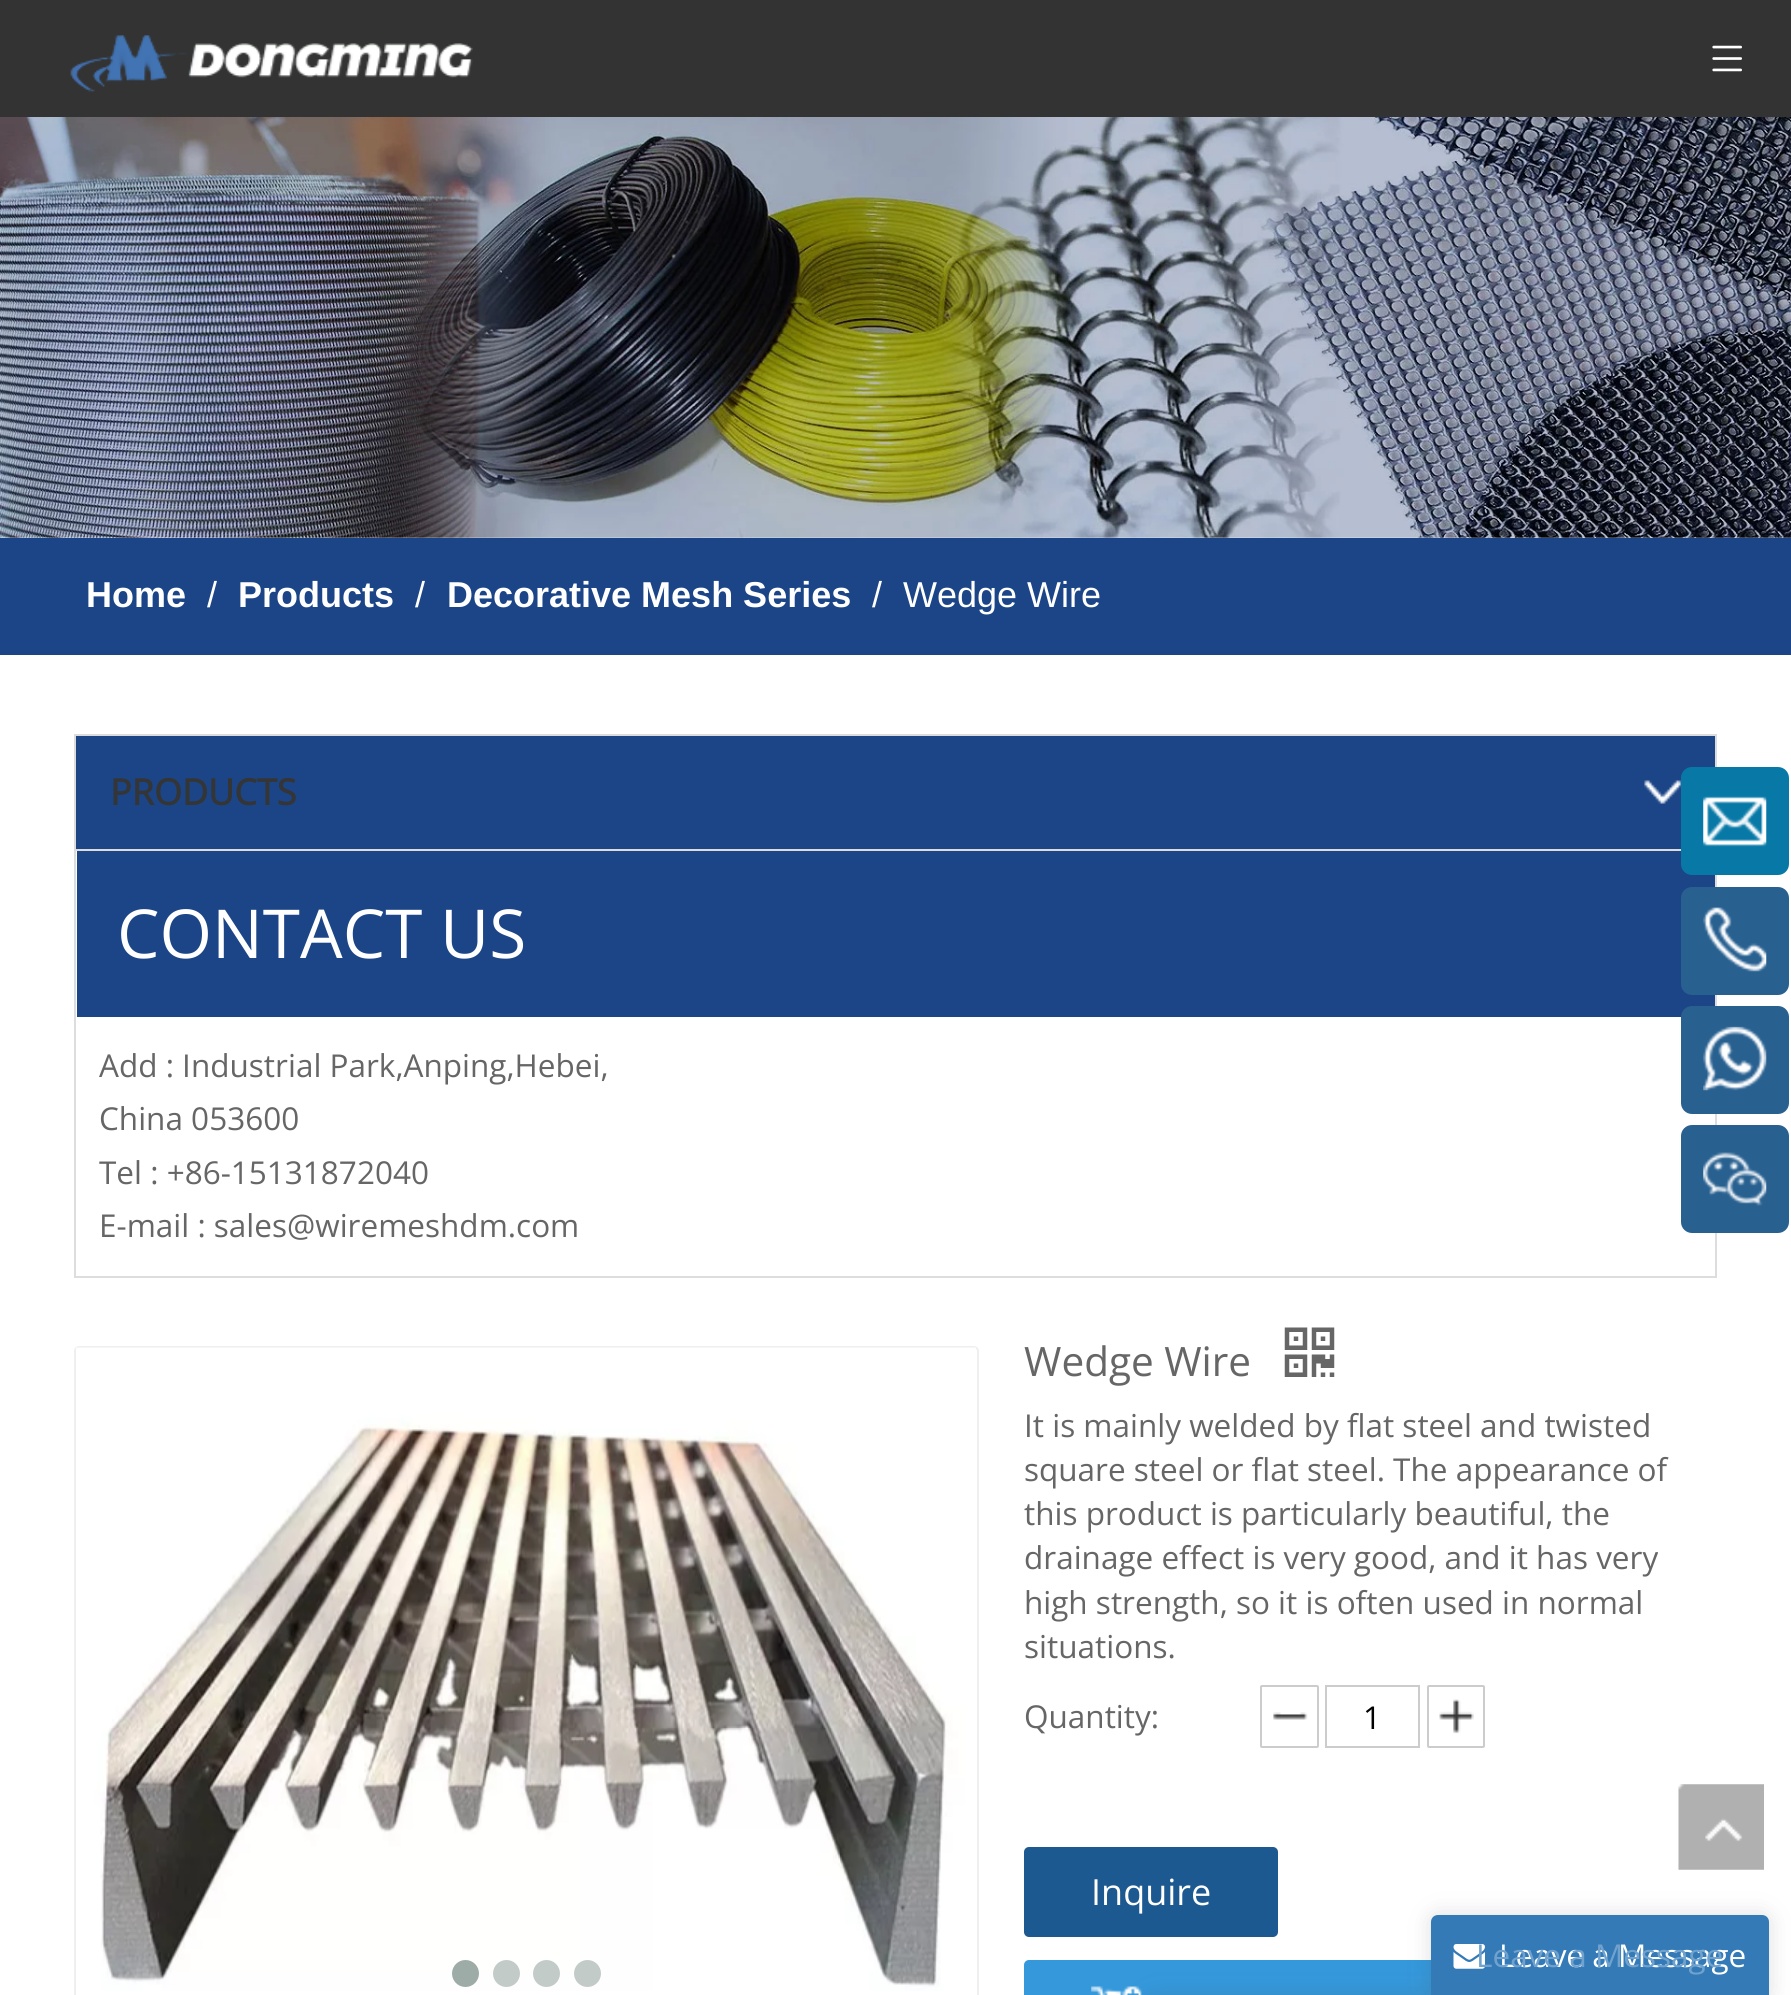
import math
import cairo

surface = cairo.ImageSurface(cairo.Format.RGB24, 1791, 1995)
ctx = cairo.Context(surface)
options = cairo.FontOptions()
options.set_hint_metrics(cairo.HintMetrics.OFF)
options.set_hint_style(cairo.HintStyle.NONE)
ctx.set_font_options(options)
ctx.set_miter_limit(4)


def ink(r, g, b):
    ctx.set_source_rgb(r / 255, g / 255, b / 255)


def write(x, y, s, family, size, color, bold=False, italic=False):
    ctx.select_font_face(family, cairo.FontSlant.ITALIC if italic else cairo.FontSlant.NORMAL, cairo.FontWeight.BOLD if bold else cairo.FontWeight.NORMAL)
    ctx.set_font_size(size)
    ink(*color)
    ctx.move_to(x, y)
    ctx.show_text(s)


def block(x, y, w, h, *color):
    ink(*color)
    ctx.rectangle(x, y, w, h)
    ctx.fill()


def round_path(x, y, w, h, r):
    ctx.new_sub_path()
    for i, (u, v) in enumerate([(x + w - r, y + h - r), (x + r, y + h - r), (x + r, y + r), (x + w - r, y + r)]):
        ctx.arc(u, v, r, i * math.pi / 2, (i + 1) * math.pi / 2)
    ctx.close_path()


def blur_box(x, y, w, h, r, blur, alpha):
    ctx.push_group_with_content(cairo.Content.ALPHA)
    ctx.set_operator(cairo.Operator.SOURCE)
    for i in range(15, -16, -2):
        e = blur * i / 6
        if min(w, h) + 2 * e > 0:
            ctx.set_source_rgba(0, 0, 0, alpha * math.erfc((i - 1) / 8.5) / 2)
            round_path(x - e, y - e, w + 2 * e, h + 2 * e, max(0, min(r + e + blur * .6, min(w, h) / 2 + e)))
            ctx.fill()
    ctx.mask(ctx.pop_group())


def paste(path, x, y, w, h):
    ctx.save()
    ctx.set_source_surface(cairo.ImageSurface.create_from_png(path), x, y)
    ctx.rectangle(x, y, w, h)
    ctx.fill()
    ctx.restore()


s1 = dict(family="Liberation Sans", size=36, color=(255, 255, 255), bold=True)
s2 = dict(family="Liberation Sans", size=36, color=(255, 255, 255))
s3 = dict(family="Open Sans", size=36, color=(52, 53, 54), bold=True)
s4 = dict(family="Open Sans", size=67.5, color=(255, 255, 255))
s5 = dict(family="Open Sans", size=31.5, color=(102, 102, 102))
s6 = dict(family="Open Sans", size=40.5, color=(102, 102, 102))
s7 = dict(family="Open Sans", size=31.5, color=(0, 0, 0))
s8 = dict(family="Open Sans", size=36, color=(255, 255, 255))
s9 = dict(family="Open Sans", size=31.5, color=(255, 255, 255))
s10 = dict(family="Open Sans", size=31.5, color=(113, 162, 205))

ink(255, 255, 255)
ctx.paint()
block(0, 0, 1791, 117, 51, 51, 51)
paste("pic1.png", 70, 35, 403, 57)
paste("pic2.png", 1712, 45, 30, 27)
paste("pic3.png", 0, 117, 1791, 421)
block(0, 538, 1791, 117, 28, 69, 135)
write(86, 607, "Home", **s1)
write(207, 607, "/", **s2)
write(238, 607, "Products", **s1)
write(415, 607, "/", **s2)
write(447, 607, "Decorative Mesh Series", **s1)
write(872, 607, "/", **s2)
write(903, 607, "Wedge Wire", **s2)
ink(28, 69, 135)
ctx.rectangle(75, 735, 1641, 115)
ctx.fill_preserve()
ink(220, 220, 220)
ctx.stroke()
write(110, 805, "PRODUCTS", **s3)
paste("pic4.png", 1644, 780, 37, 24)
block(1715, 875, 2, 403, 221, 221, 221)
block(74, 1276, 1643, 2, 221, 221, 221)
block(74, 851, 2, 427, 221, 221, 221)
block(77, 851, 1638, 166, 28, 69, 135)
write(117, 958, "CONTACT US", **s4)
write(99, 1077, "Add : Industrial Park,Anping,Hebei,", **s5)
write(99, 1130, "China 053600", **s5)
write(99, 1184, "Tel : +86-15131872040", **s5)
write(99, 1237, "E-mail : sales@wiremeshdm.com", **s5)
round_path(75, 1347, 903, 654, 4)
ink(239, 239, 239)
ctx.stroke()
paste("pic5.png", 76, 1347, 900, 644)
ink(158, 172, 167)
ctx.arc(465.5, 1973.5, 13.5, 0, 2 * math.pi)
ctx.fill()
ink(195, 203, 200)
ctx.arc(506.5, 1973.5, 13.5, 0, 2 * math.pi)
ctx.fill()
ctx.arc(546.5, 1973.5, 13.5, 0, 2 * math.pi)
ctx.fill()
ctx.arc(587.5, 1973.5, 13.5, 0, 2 * math.pi)
ctx.fill()
write(1024, 1376, "Wedge Wire", **s6)
paste("pic6.png", 1284, 1327, 51, 50)
write(1024, 1437, "It is mainly welded by flat steel and twisted", **s5)
write(1024, 1481, "square steel or flat steel. The appearance of", **s5)
write(1024, 1525, "this product is particularly beautiful, the", **s5)
write(1024, 1569, "drainage effect is very good, and it has very", **s5)
write(1024, 1614, "high strength, so it is often used in normal", **s5)
write(1024, 1658, "situations.", **s5)
write(1024, 1728, "Quantity:", **s5)
paste("pic7.png", 1273, 1712, 35, 8)
round_path(1261, 1686, 57, 61, 1)
ink(204, 204, 204)
ctx.stroke()
ctx.rectangle(1326, 1686, 93, 61)
ctx.stroke()
write(1363, 1729, "1", **s7)
paste("pic8.png", 1439, 1699, 35, 35)
round_path(1428, 1686, 56, 61, 1)
ink(204, 204, 204)
ctx.stroke()
ink(29, 89, 145)
round_path(1024, 1847, 254, 90, 5)
ctx.fill()
write(1091, 1905, "Inquire", **s8)
ink(52, 152, 219)
round_path(1024, 1960, 434, 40, 5)
ctx.fill()
paste("pic9.png", 1091, 1986, 51, 9)
paste("pic10.png", 1678, 1784, 86, 86)
ink(8, 121, 167)
round_path(1681, 767, 108, 108, 11)
ctx.fill()
paste("pic11.png", 1703, 796, 64, 51)
ink(40, 96, 144)
round_path(1681, 887, 108, 108, 11)
ctx.fill()
paste("pic12.png", 1703, 907, 64, 65)
round_path(1681, 1006, 108, 108, 11)
ctx.fill()
paste("pic13.png", 1703, 1026, 64, 65)
round_path(1681, 1125, 108, 108, 11)
ctx.fill()
paste("pic14.png", 1703, 1152, 64, 54)
ink(68, 68, 68)
blur_box(1431, 1915, 338, 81, 7, 11, 0.18)
blur_box(1139, 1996, 630, 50, 18, 11, 0.18)
ink(51, 122, 183)
ctx.new_path()
ctx.move_to(1438, 1915)
ctx.line_to(1762, 1915)
ctx.curve_to(1766, 1915, 1769, 1918, 1769, 1922)
ctx.line_to(1769, 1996)
ctx.line_to(1431, 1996)
ctx.line_to(1431, 1922)
ctx.curve_to(1431, 1918, 1434, 1915, 1438, 1915)
ctx.close_path()
ctx.fill()
paste("pic15.png", 1453, 1944, 32, 25)
write(1499, 1967, "Leave a Message", **s9)
write(1476, 1967, "Leave a Message", **s10)
surface.write_to_png("screenshot.png")
